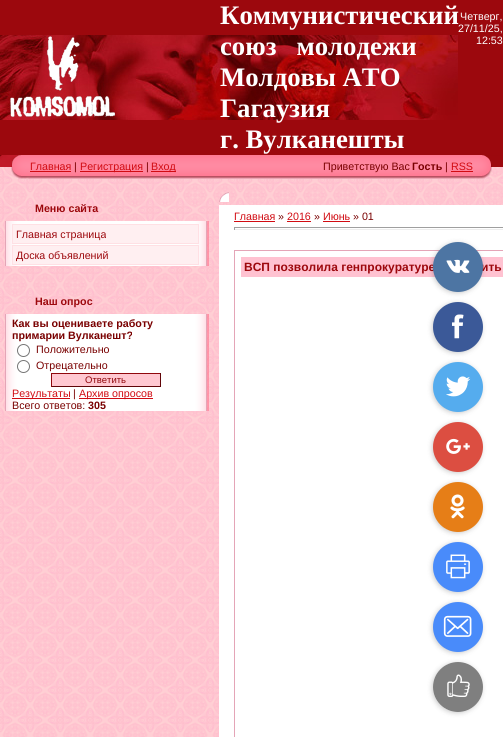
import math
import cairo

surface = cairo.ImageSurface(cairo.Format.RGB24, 503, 737)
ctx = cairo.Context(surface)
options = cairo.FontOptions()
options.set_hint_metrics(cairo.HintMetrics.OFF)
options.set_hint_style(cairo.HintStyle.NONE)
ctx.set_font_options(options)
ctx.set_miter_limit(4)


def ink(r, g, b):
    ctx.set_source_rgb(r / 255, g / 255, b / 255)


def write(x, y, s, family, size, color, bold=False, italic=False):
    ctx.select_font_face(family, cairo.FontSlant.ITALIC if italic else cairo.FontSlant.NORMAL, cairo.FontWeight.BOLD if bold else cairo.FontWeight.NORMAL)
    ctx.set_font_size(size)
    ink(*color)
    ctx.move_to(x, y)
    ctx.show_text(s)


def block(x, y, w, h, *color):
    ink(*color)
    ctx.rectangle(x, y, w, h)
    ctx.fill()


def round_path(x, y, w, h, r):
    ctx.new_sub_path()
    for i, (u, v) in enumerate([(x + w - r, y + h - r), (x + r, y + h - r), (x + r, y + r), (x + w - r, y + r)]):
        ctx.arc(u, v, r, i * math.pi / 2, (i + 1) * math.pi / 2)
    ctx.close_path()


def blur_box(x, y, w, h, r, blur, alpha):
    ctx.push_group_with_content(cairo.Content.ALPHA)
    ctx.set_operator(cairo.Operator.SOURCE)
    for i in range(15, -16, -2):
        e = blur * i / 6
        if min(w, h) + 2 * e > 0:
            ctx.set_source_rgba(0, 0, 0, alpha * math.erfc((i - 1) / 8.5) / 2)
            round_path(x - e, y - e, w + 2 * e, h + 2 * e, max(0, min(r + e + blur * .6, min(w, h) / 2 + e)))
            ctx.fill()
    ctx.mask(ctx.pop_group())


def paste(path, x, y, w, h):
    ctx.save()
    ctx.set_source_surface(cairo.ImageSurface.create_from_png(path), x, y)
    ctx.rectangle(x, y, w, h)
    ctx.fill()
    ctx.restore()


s1 = dict(family="Liberation Serif", size=26.75, color=(255, 255, 255), bold=True)
s2 = dict(family="Liberation Sans", size=10.7, color=(255, 255, 255))
s3 = dict(family="Liberation Sans", size=10.7, color=(209, 11, 18))
s4 = dict(family="Liberation Sans", size=10.7, color=(121, 0, 0))
s5 = dict(family="Liberation Sans", size=10.7, color=(121, 0, 0), bold=True)
s6 = dict(family="Liberation Sans", size=10.7, color=(157, 8, 13), bold=True)
s7 = dict(family="Liberation Sans", size=10.7, color=(157, 8, 13))
s8 = dict(family="Liberation Sans", size=9.5, color=(144, 7, 12))
s9 = dict(family="Liberation Sans", size=12, color=(157, 8, 13), bold=True)

ink(255, 255, 255)
ctx.paint()
paste("pic1.png", 0, 167, 503, 570)
block(0, 0, 503, 155, 156, 8, 13)
paste("pic2.png", 0, 35, 458, 85)
write(220, 24, "Коммунистический", **s1)
write(220, 55, "cоюз   молодежи", **s1)
write(220, 86, "Молдовы АТО", **s1)
write(220, 117, "Гагаузия", **s1)
write(220, 148, "г. Вулканешты", **s1)
write(460, 20, "Четверг,", **s2)
write(458, 32, "27/11/25,", **s2)
write(476, 44, "12:53", **s2)
paste("pic3.png", 0, 155, 30, 24)
paste("pic4.png", 30, 155, 218, 24)
write(30, 170, "Главная", **s3)
block(30, 171, 41, 1, 209, 11, 18)
write(74, 170, "|", **s4)
block(80, 171, 63, 1, 209, 11, 18)
write(80, 170, "Регистрация", **s3)
write(146, 170, "|", **s4)
block(151, 171, 25, 1, 209, 11, 18)
write(151, 170, "Вход", **s3)
paste("pic5.png", 248, 155, 225, 24)
write(323, 170, "Приветствую Вас", **s4)
write(412, 170, "Гость", **s5)
write(445, 170, "|", **s4)
write(451, 170, "RSS", **s3)
block(451, 171, 22, 1, 209, 11, 18)
paste("pic6.png", 473, 155, 30, 24)
write(35, 212, "Меню сайта", **s6)
paste("pic7.png", 5, 221, 204, 45)
ink(255, 239, 241)
ctx.rectangle(12.5, 224.5, 186, 19)
ctx.fill_preserve()
ink(255, 224, 228)
ctx.set_line_width(1)
ctx.stroke()
write(16, 238, "Главная страница", **s7)
ink(255, 239, 241)
ctx.rectangle(12.5, 245.5, 186, 19)
ctx.fill_preserve()
ink(255, 224, 228)
ctx.stroke()
write(16, 259, "Доска объявлений", **s7)
write(35, 305, "Наш опрос", **s6)
paste("pic8.png", 5, 314, 204, 97)
write(12, 327, "Как вы оцениваете работу", **s5)
write(12, 339, "примарии Вулканешт?", **s5)
ctx.new_path()
ctx.arc(23.5, 350.5, 6, 0, 2 * math.pi)
ink(118, 118, 118)
ctx.stroke()
write(36, 353, "Положительно", **s4)
ctx.new_path()
ctx.arc(23.5, 366.5, 6, 0, 2 * math.pi)
ink(118, 118, 118)
ctx.stroke()
write(36, 369, "Отрецательно", **s4)
block(52, 374, 108, 12, 255, 200, 209)
block(51, 373, 110, 1, 144, 7, 12)
block(160, 373, 1, 14, 96, 5, 8)
block(51, 386, 110, 1, 96, 5, 8)
block(51, 373, 1, 14, 144, 7, 12)
write(85, 383, "Ответить", **s8)
block(12, 398, 58, 1, 209, 11, 18)
write(12, 397, "Результаты", **s3)
write(73, 397, "|", **s4)
block(79, 398, 74, 1, 209, 11, 18)
write(79, 397, "Архив опросов", **s3)
write(12, 409, "Всего ответов:", **s4)
write(88, 409, "305", **s5)
paste("pic9.png", 219, 192, 10, 10)
block(219, 205, 284, 532, 255, 255, 255)
write(234, 220, "Главная", **s3)
block(234, 221, 41, 1, 209, 11, 18)
write(278, 220, "»", **s4)
write(287, 220, "2016", **s3)
block(287, 221, 24, 1, 209, 11, 18)
write(314, 220, "»", **s4)
write(323, 220, "Июнь", **s3)
block(323, 221, 27, 1, 209, 11, 18)
write(353, 220, "» 01", **s4)
block(234, 227, 269, 1, 159, 159, 159)
block(234, 229, 269, 1, 238, 238, 238)
block(234, 227, 1, 3, 159, 159, 159)
ctx.rectangle(234.5, 250.5, 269, 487)
ink(228, 165, 183)
ctx.stroke()
block(241, 257, 262, 20, 255, 194, 209)
write(244, 271, "ВСП позволила генпрокуратуре", **s9)
write(481, 271, "ить", **s9)
ink(0, 0, 0)
blur_box(432, 243, 50, 50, 25, 2.5, 0.2)
ink(77, 117, 163)
ctx.arc(458, 267, 25, 0, 2 * math.pi)
ctx.fill()
paste("pic10.png", 446, 259, 24, 14)
ink(0, 0, 0)
blur_box(432, 303, 50, 50, 25, 2.5, 0.2)
ink(59, 89, 152)
ctx.arc(458, 327, 25, 0, 2 * math.pi)
ctx.fill()
paste("pic11.png", 452, 314, 12, 25)
ink(0, 0, 0)
blur_box(432, 363, 50, 50, 25, 2.5, 0.2)
ink(85, 172, 238)
ctx.arc(458, 387, 25, 0, 2 * math.pi)
ctx.fill()
paste("pic12.png", 446, 376, 25, 21)
ink(0, 0, 0)
blur_box(432, 423, 50, 50, 25, 2.5, 0.2)
ink(220, 78, 65)
ctx.arc(458, 447, 25, 0, 2 * math.pi)
ctx.fill()
paste("pic13.png", 446, 438, 24, 16)
ink(0, 0, 0)
blur_box(432, 483, 50, 50, 25, 2.5, 0.2)
ink(230, 126, 23)
ctx.arc(458, 507, 25, 0, 2 * math.pi)
ctx.fill()
paste("pic14.png", 450, 494, 15, 25)
ink(0, 0, 0)
blur_box(432, 543, 50, 50, 25, 2.5, 0.2)
ink(73, 139, 250)
ctx.arc(458, 567, 25, 0, 2 * math.pi)
ctx.fill()
paste("pic15.png", 446, 554, 24, 25)
ink(0, 0, 0)
blur_box(432, 603, 50, 50, 25, 2.5, 0.2)
ink(73, 139, 250)
ctx.arc(458, 627, 25, 0, 2 * math.pi)
ctx.fill()
paste("pic16.png", 443, 615, 29, 22)
ctx.save()
ctx.set_fill_rule(cairo.FillRule.EVEN_ODD)
ctx.new_path()
ctx.move_to(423, 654)
ctx.line_to(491, 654)
ctx.line_to(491, 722)
ctx.line_to(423, 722)
ctx.close_path()
ctx.move_to(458, 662)
ctx.curve_to(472, 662, 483, 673, 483, 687)
ctx.curve_to(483, 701, 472, 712, 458, 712)
ctx.curve_to(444, 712, 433, 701, 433, 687)
ctx.curve_to(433, 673, 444, 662, 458, 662)
ctx.close_path()
ctx.clip()
ink(0, 0, 0)
blur_box(432, 663, 50, 50, 25, 2.5, 0.2)
ctx.restore()
ctx.set_source_rgba(0, 0, 0, 0.5)
ctx.arc(458, 687, 25, 0, 2 * math.pi)
ctx.fill()
paste("pic17.png", 447, 674, 23, 23)
surface.write_to_png("screenshot.png")
